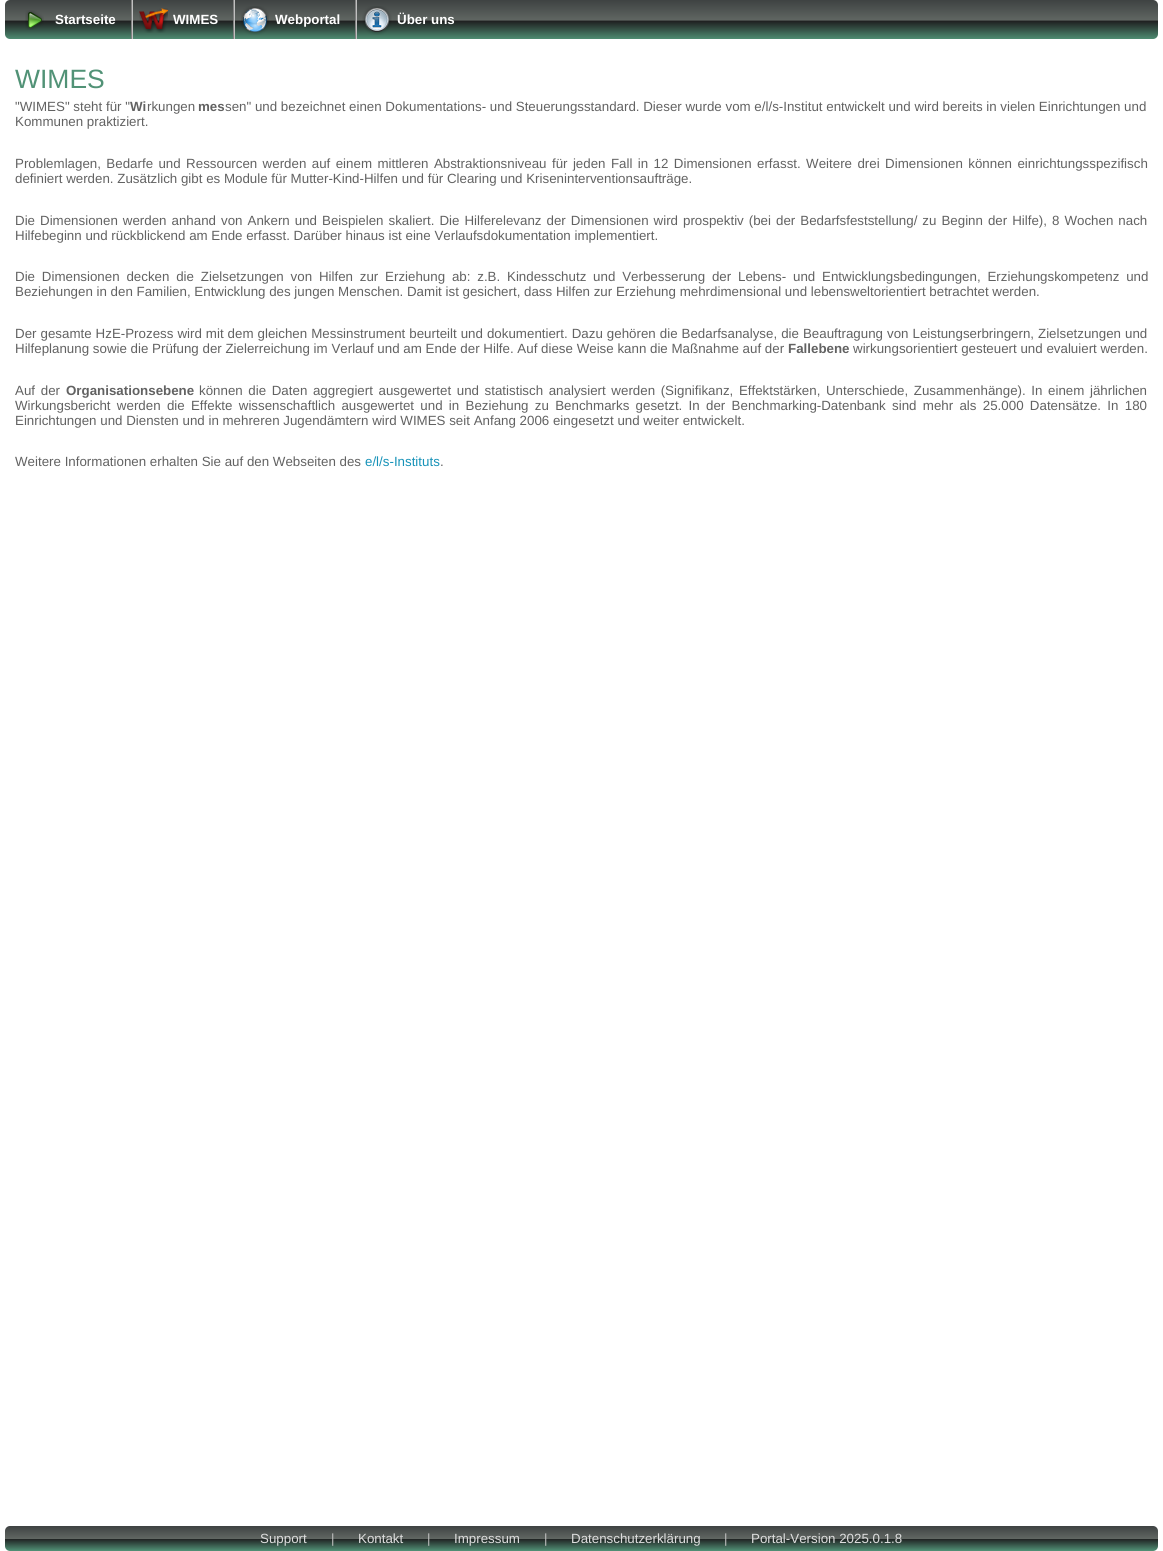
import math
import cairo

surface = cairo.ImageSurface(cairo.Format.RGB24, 1163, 1551)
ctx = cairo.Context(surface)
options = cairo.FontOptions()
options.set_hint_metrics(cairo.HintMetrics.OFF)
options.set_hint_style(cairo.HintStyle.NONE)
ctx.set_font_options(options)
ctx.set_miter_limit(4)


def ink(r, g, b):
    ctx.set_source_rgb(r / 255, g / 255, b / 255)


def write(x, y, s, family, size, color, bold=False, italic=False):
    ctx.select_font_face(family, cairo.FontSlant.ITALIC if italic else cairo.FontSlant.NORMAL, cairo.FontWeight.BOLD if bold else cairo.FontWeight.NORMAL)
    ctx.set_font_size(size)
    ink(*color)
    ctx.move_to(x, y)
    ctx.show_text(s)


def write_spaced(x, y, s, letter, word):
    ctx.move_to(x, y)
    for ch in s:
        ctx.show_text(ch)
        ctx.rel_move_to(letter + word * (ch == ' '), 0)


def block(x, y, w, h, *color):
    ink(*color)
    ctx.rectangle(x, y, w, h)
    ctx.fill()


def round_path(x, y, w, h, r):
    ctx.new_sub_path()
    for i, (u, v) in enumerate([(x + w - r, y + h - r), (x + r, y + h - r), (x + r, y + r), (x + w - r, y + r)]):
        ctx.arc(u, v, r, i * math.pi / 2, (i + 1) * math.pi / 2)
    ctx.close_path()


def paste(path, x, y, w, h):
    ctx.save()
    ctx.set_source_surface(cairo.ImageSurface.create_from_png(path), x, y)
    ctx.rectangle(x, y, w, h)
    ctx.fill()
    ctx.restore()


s1 = dict(family="Liberation Sans", size=13.33, color=(255, 255, 255), bold=True)
s2 = dict(family="Liberation Sans", size=26.5, color=(81, 146, 118))
s3 = dict(family="Liberation Sans", size=13.33, color=(98, 98, 98))
s4 = dict(family="Liberation Sans", size=13.33, color=(98, 98, 98), bold=True)
s5 = dict(family="Liberation Sans", size=13.33, color=(22, 146, 184))
s6 = dict(family="Liberation Sans", size=13.33, color=(221, 221, 221))
s7 = dict(family="Liberation Sans", size=13.33, color=(192, 192, 192))

ink(255, 255, 255)
ctx.paint()
gradient = cairo.LinearGradient(582, 0, 582, 40)
gradient.add_color_stop_rgba(0, 0.243, 0.259, 0.259, 1)
gradient.add_color_stop_rgba(0.5, 0.376, 0.4, 0.384, 1)
gradient.add_color_stop_rgba(0.53, 0.122, 0.125, 0.129, 1)
gradient.add_color_stop_rgba(1, 0.318, 0.573, 0.463, 1)
gradient.add_color_stop_rgba(1, 0.043, 0.059, 0.051, 1)
ctx.set_source(gradient)
round_path(5, 0, 1153, 39, 5)
ctx.fill()
paste("pic1.png", 25, 10, 19, 20)
block(131, 0, 1, 39, 128, 128, 128)
write(55, 24, "Startseite", **s1)
paste("pic2.png", 139, 8, 29, 25)
block(233, 0, 1, 39, 128, 128, 128)
block(132, 0, 1, 39, 192, 192, 192)
write(173, 24, "WIMES", **s1)
paste("pic3.png", 241, 6, 28, 29)
block(355, 0, 1, 39, 128, 128, 128)
block(234, 0, 1, 39, 192, 192, 192)
write(275, 24, "Webportal", **s1)
paste("pic4.png", 362, 6, 30, 29)
block(356, 0, 1, 39, 192, 192, 192)
write(397, 24, "Über uns", **s1)
write(15, 88, "WIMES", **s2)
write(15, 111, "\"WIMES\" steht für \"", **s3)
write(130, 111, "Wi", **s4)
write(147, 111, "rkungen", **s3)
write(198, 111, "mes", **s4)
write(225, 111, "sen\" und bezeichnet einen Dokumentations- und Steuerungsstandard. Dieser wurde vom e/l/s-Institut entwickelt und wird bereits in vielen Einrichtungen und", **s3)
write(15, 126, "Kommunen praktiziert.", **s3)
write_spaced(15, 168, "Problemlagen, Bedarfe und Ressourcen werden auf einem mittleren Abstraktionsniveau für jeden Fall in 12 Dimensionen erfasst. Weitere drei Dimensionen können einrichtungsspezifisch", 0, 1.7)
write(15, 183, "definiert werden. Zusätzlich gibt es Module für Mutter-Kind-Hilfen und für Clearing und Kriseninterventionsaufträge.", **s3)
write_spaced(15, 225, "Die Dimensionen werden anhand von Ankern und Beispielen skaliert. Die Hilferelevanz der Dimensionen wird prospektiv (bei der Bedarfsfeststellung/ zu Beginn der Hilfe), 8 Wochen nach", 0, 1.3)
write(15, 240, "Hilfebeginn und rückblickend am Ende erfasst. Darüber hinaus ist eine Verlaufsdokumentation implementiert.", **s3)
write_spaced(15, 281, "Die Dimensionen decken die Zielsetzungen von Hilfen zur Erziehung ab: z.B. Kindesschutz und Verbesserung der Lebens- und Entwicklungsbedingungen, Erziehungskompetenz und", 0, 3.1)
write(15, 296, "Beziehungen in den Familien, Entwicklung des jungen Menschen. Damit ist gesichert, dass Hilfen zur Erziehung mehrdimensional und lebensweltorientiert betrachtet werden.", **s3)
write_spaced(15, 338, "Der gesamte HzE-Prozess wird mit dem gleichen Messinstrument beurteilt und dokumentiert. Dazu gehören die Bedarfsanalyse, die Beauftragung von Leistungserbringern, Zielsetzungen und", 0, 0.3)
write(15, 353, "Hilfeplanung sowie die Prüfung der Zielerreichung im Verlauf und am Ende der Hilfe. Auf diese Weise kann die Maßnahme auf der", **s3)
write(788, 353, "Fallebene", **s4)
write(853, 353, "wirkungsorientiert gesteuert und evaluiert werden.", **s3)
write_spaced(15, 395, "Auf der", 0, 2)
write(66, 395, "Organisationsebene", **s4)
ctx.select_font_face("Liberation Sans")
write_spaced(199, 395, "können die Daten aggregiert ausgewertet und statistisch analysiert werden (Signifikanz, Effektstärken, Unterschiede, Zusammenhänge). In einem jährlichen", 0, 1.9)
write_spaced(15, 410, "Wirkungsbericht werden die Effekte wissenschaftlich ausgewertet und in Beziehung zu Benchmarks gesetzt. In der Benchmarking-Datenbank sind mehr als 25.000 Datensätze. In 180", 0, 2.6)
write(15, 425, "Einrichtungen und Diensten und in mehreren Jugendämtern wird WIMES seit Anfang 2006 eingesetzt und weiter entwickelt.", **s3)
write(15, 466, "Weitere Informationen erhalten Sie auf den Webseiten des", **s3)
write(365, 466, "e/l/s-Instituts", **s5)
write(440, 466, ".", **s3)
gradient = cairo.LinearGradient(582, 1526, 582, 1551)
gradient.add_color_stop_rgba(0, 0.243, 0.259, 0.259, 1)
gradient.add_color_stop_rgba(0.5, 0.376, 0.4, 0.384, 1)
gradient.add_color_stop_rgba(0.51, 0.122, 0.125, 0.129, 1)
gradient.add_color_stop_rgba(1, 0.318, 0.573, 0.463, 1)
ctx.set_source(gradient)
round_path(5, 1526, 1153, 25, 5)
ctx.fill()
write(260, 1543, "Support", **s6)
write(331, 1543, "|", **s7)
write(358, 1543, "Kontakt", **s6)
write(427, 1543, "|", **s7)
write(454, 1543, "Impressum", **s6)
write(544, 1543, "|", **s7)
write(571, 1543, "Datenschutzerklärung", **s6)
write(724, 1543, "|", **s7)
write(751, 1543, "Portal-Version 2025.0.1.8", **s6)
surface.write_to_png("screenshot.png")
